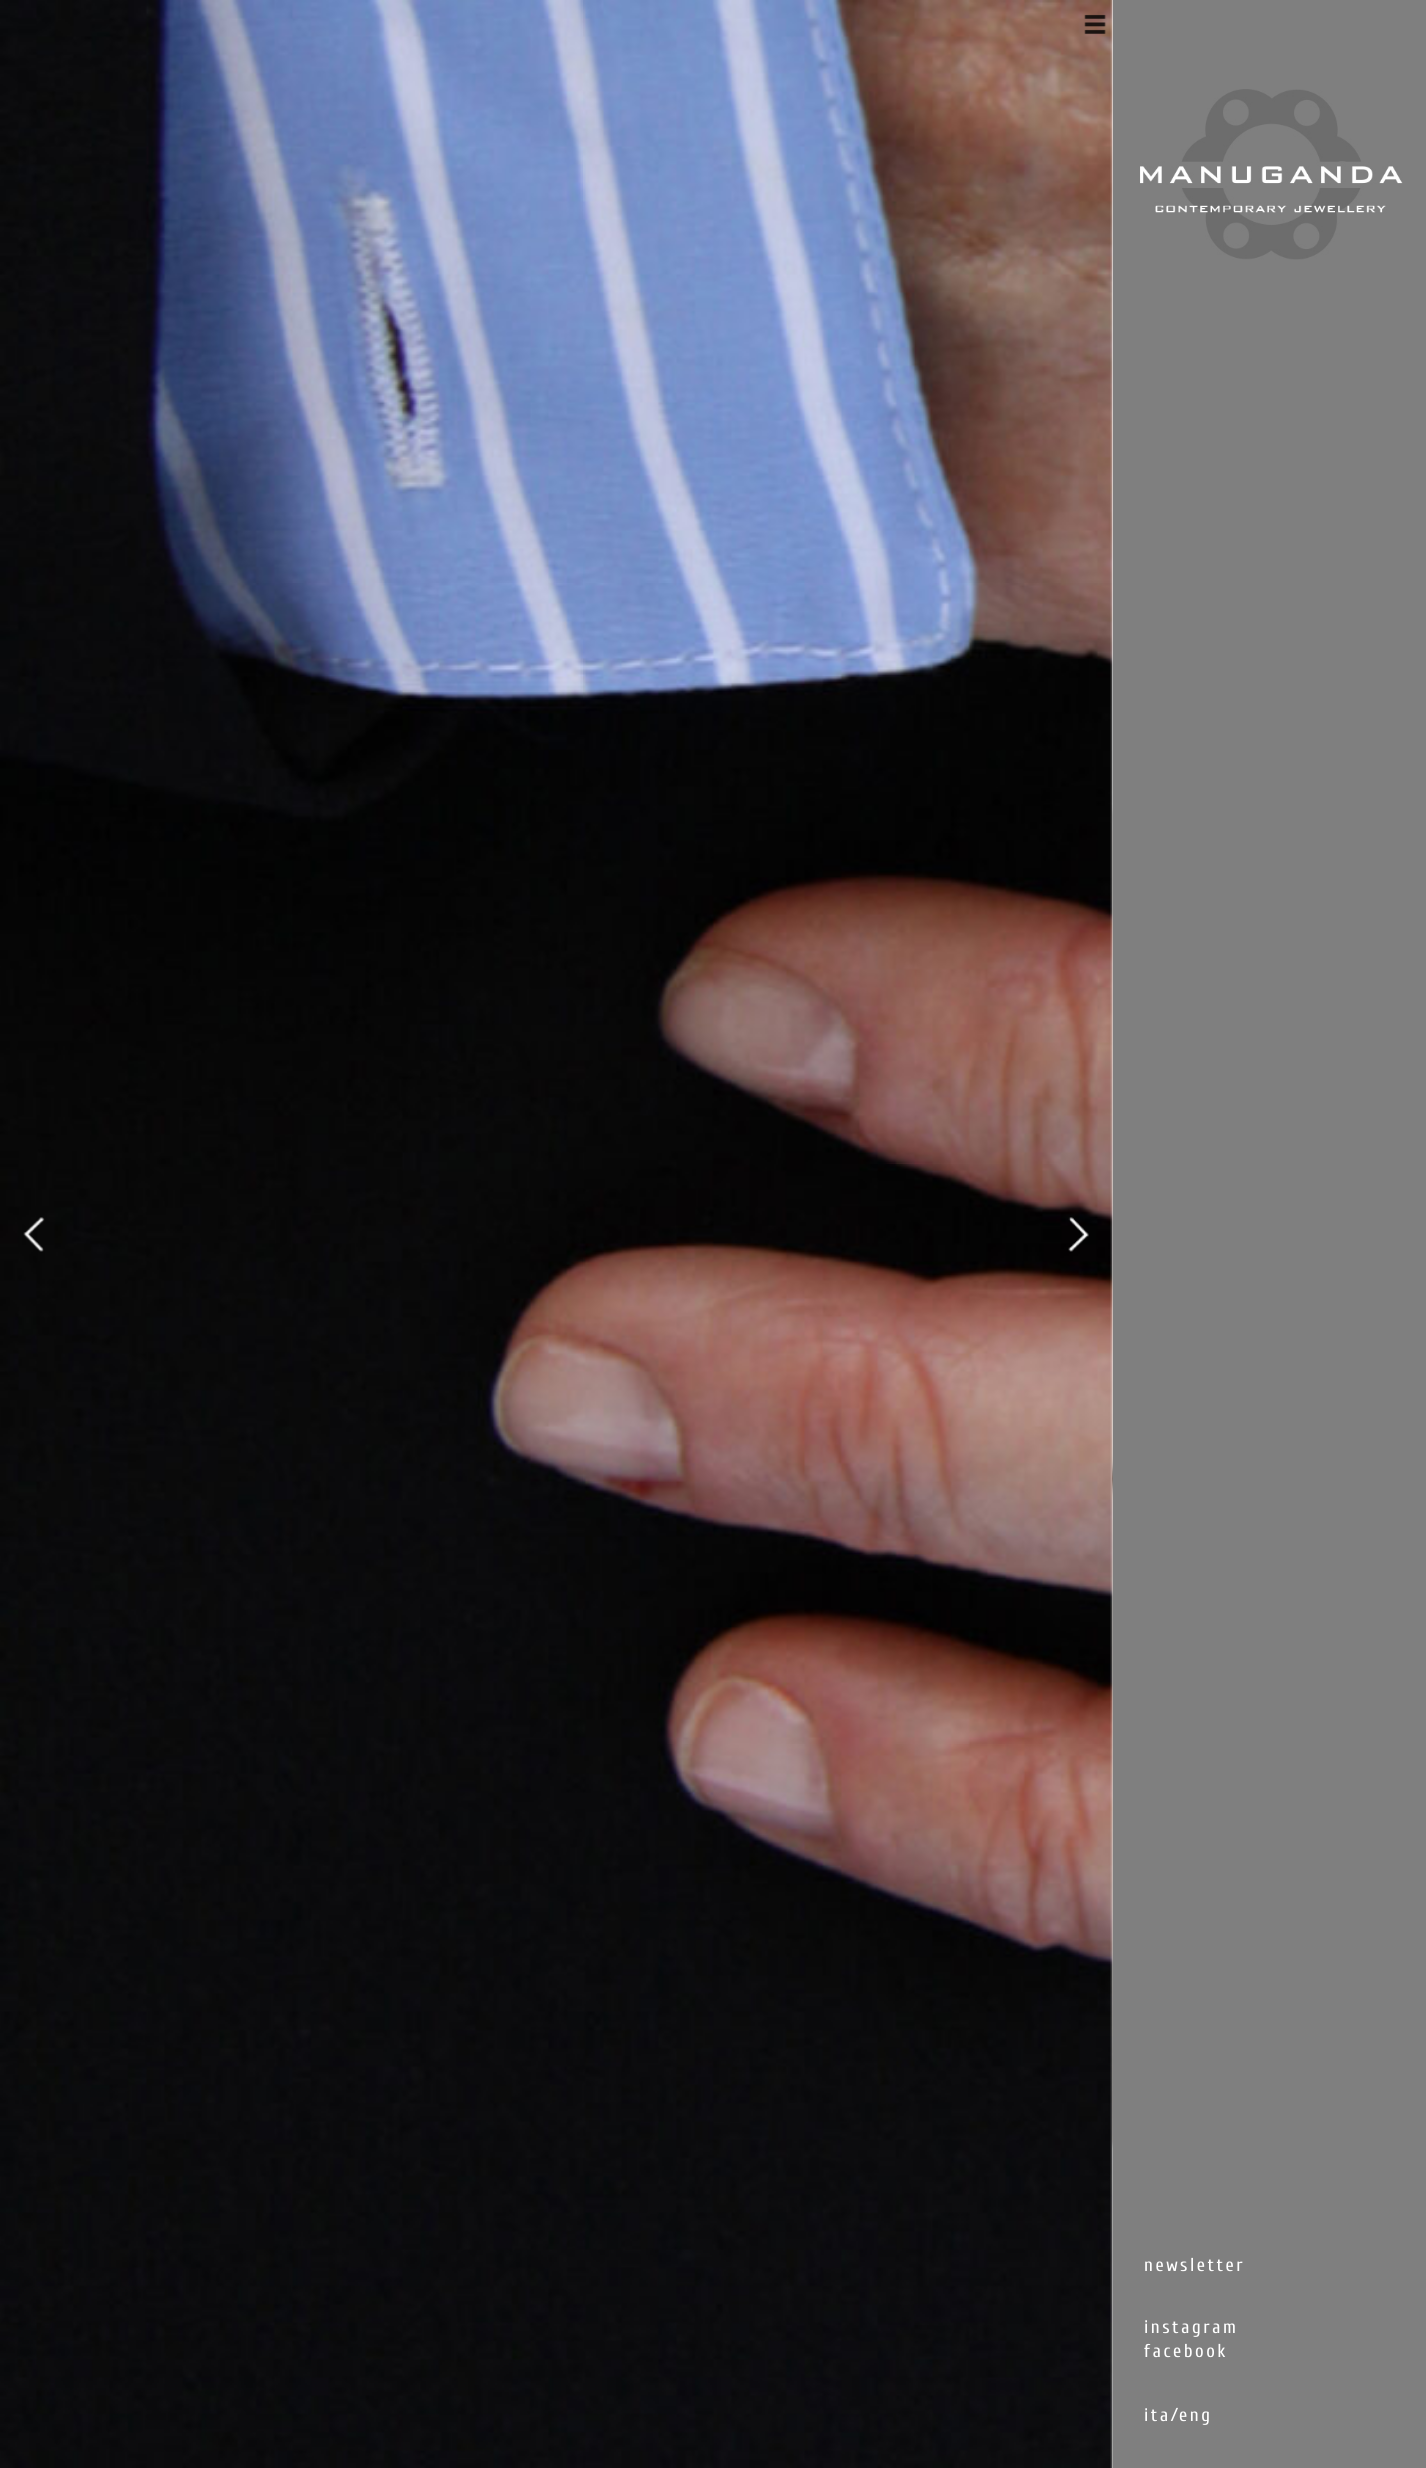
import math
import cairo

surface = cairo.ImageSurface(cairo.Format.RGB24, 1426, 2468)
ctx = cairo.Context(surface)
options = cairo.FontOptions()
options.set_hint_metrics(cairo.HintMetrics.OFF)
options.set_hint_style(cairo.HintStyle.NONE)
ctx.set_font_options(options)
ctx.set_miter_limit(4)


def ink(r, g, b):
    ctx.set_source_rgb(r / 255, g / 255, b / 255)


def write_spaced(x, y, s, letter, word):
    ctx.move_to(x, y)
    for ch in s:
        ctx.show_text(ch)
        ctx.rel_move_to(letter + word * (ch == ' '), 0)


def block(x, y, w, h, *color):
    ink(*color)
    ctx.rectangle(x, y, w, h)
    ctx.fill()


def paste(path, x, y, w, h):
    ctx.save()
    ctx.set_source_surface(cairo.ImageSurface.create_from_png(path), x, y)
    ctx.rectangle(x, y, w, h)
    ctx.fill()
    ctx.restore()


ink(255, 255, 255)
ctx.paint()
paste("pic2.png", 0, 0, 1113, 2468)
paste("pic1.png", 1084, 14, 22, 20)
paste("pic3.png", 1112, 0, 1, 2468)
paste("pic4.png", 23, 1217, 22, 35)
paste("pic5.png", 1068, 1217, 21, 35)
block(1113, 0, 313, 2468, 127, 127, 127)
paste("pic6.png", 1140, 89, 263, 171)
ctx.select_font_face("Cuprum")
ctx.set_font_size(18.75)
ink(255, 255, 255)
write_spaced(1144, 2271, "newsletter", 2.5, 0)
write_spaced(1144, 2333, "instagram", 2.5, 0)
write_spaced(1144, 2357, "facebook", 2.5, 0)
write_spaced(1144, 2421, "ita/", 2.5, 0)
write_spaced(1179, 2421, "eng", 2.5, 0)
surface.write_to_png("screenshot.png")
